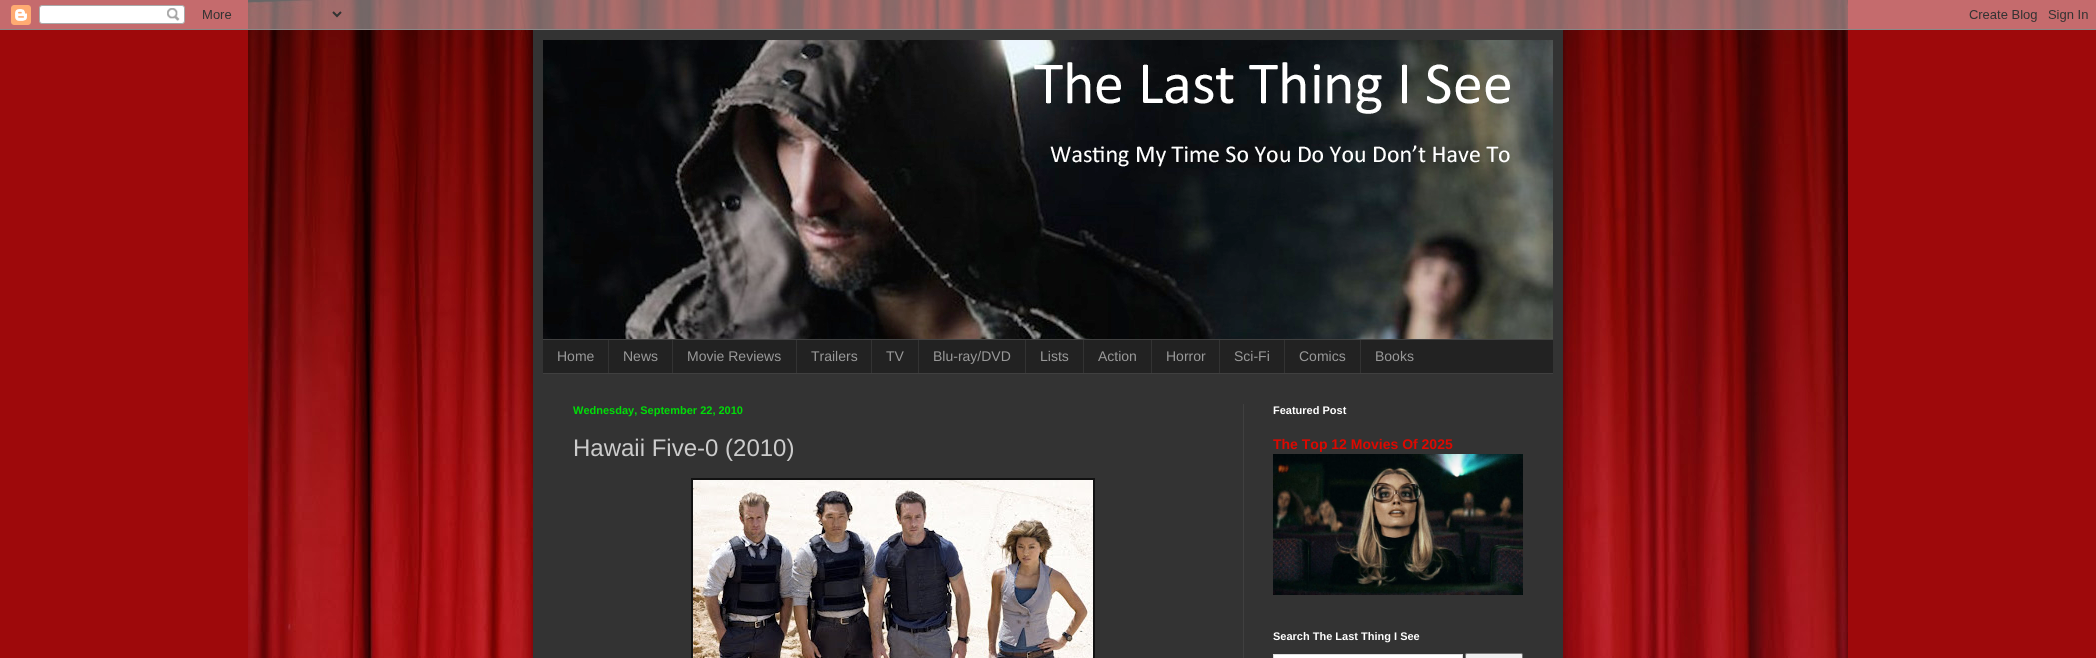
import math
import cairo

surface = cairo.ImageSurface(cairo.Format.RGB24, 2096, 658)
ctx = cairo.Context(surface)
options = cairo.FontOptions()
options.set_hint_metrics(cairo.HintMetrics.OFF)
options.set_hint_style(cairo.HintStyle.NONE)
ctx.set_font_options(options)
ctx.set_miter_limit(4)


def ink(r, g, b):
    ctx.set_source_rgb(r / 255, g / 255, b / 255)


def write(x, y, s, family, size, color, bold=False, italic=False):
    ctx.select_font_face(family, cairo.FontSlant.ITALIC if italic else cairo.FontSlant.NORMAL, cairo.FontWeight.BOLD if bold else cairo.FontWeight.NORMAL)
    ctx.set_font_size(size)
    ink(*color)
    ctx.move_to(x, y)
    ctx.show_text(s)


def block(x, y, w, h, *color):
    ink(*color)
    ctx.rectangle(x, y, w, h)
    ctx.fill()


def round_path(x, y, w, h, r):
    ctx.new_sub_path()
    for i, (u, v) in enumerate([(x + w - r, y + h - r), (x + r, y + h - r), (x + r, y + r), (x + w - r, y + r)]):
        ctx.arc(u, v, r, i * math.pi / 2, (i + 1) * math.pi / 2)
    ctx.close_path()


def blur_box(x, y, w, h, r, blur, alpha):
    ctx.push_group_with_content(cairo.Content.ALPHA)
    ctx.set_operator(cairo.Operator.SOURCE)
    for i in range(15, -16, -2):
        e = blur * i / 6
        if min(w, h) + 2 * e > 0:
            ctx.set_source_rgba(0, 0, 0, alpha * math.erfc((i - 1) / 8.5) / 2)
            round_path(x - e, y - e, w + 2 * e, h + 2 * e, max(0, min(r + e + blur * .6, min(w, h) / 2 + e)))
            ctx.fill()
    ctx.mask(ctx.pop_group())


def paste(path, x, y, w, h):
    ctx.save()
    ctx.set_source_surface(cairo.ImageSurface.create_from_png(path), x, y)
    ctx.rectangle(x, y, w, h)
    ctx.fill()
    ctx.restore()


s1 = dict(family="Liberation Sans", size=14, color=(153, 153, 153))
s2 = dict(family="Liberation Sans", size=11, color=(0, 221, 8), bold=True)
s3 = dict(family="Liberation Sans", size=24, color=(204, 204, 204))
s4 = dict(family="Liberation Sans", size=11, color=(255, 255, 255), bold=True)
s5 = dict(family="Liberation Sans", size=14, color=(221, 8, 0), bold=True)

ink(158, 9, 11)
ctx.paint()
paste("pic1.png", 248, 0, 1600, 658)
ink(0, 0, 0)
blur_box(533, 30, 1030, 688, 0, 20, 0.15)
paste("pic2.png", 0, 0, 2096, 30)
block(533, 30, 1030, 628, 51, 51, 51)
paste("pic3.png", 543, 40, 1010, 299)
block(543, 340, 1010, 33, 34, 34, 34)
block(543, 339, 1010, 1, 64, 64, 64)
block(543, 373, 1010, 1, 64, 64, 64)
write(557, 361, "Home", **s1)
block(608, 340, 1, 33, 51, 51, 51)
write(623, 361, "News", **s1)
block(672, 340, 1, 33, 51, 51, 51)
write(687, 361, "Movie Reviews", **s1)
block(796, 340, 1, 33, 51, 51, 51)
write(811, 361, "Trailers", **s1)
block(871, 340, 1, 33, 51, 51, 51)
write(886, 361, "TV", **s1)
block(918, 340, 1, 33, 51, 51, 51)
write(933, 361, "Blu-ray/DVD", **s1)
block(1025, 340, 1, 33, 51, 51, 51)
write(1040, 361, "Lists", **s1)
block(1083, 340, 1, 33, 51, 51, 51)
write(1098, 361, "Action", **s1)
block(1151, 340, 1, 33, 51, 51, 51)
write(1166, 361, "Horror", **s1)
block(1219, 340, 1, 33, 51, 51, 51)
write(1234, 361, "Sci-Fi", **s1)
block(1284, 340, 1, 33, 51, 51, 51)
write(1299, 361, "Comics", **s1)
block(1360, 340, 1, 33, 51, 51, 51)
write(1375, 361, "Books", **s1)
block(1243, 404, 1, 254, 64, 64, 64)
write(573, 414, "Wednesday, September 22, 2010", **s2)
write(573, 456, "Hawaii Five-0 (2010)", **s3)
block(691, 478, 404, 180, 17, 17, 17)
paste("pic4.png", 693, 480, 400, 178)
write(1273, 414, "Featured Post", **s4)
write(1273, 449, "The Top 12 Movies Of 2025", **s5)
paste("pic5.png", 1273, 454, 250, 141)
write(1273, 640, "Search The Last Thing I See", **s4)
ctx.rectangle(1273.5, 654.5, 189, 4)
ctx.fill_preserve()
ink(221, 221, 221)
ctx.set_line_width(1)
ctx.stroke()
ink(239, 239, 239)
round_path(1465.5, 653.5, 57, 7, 1.5)
ctx.fill_preserve()
ink(118, 118, 118)
ctx.stroke()
surface.write_to_png("screenshot.png")
